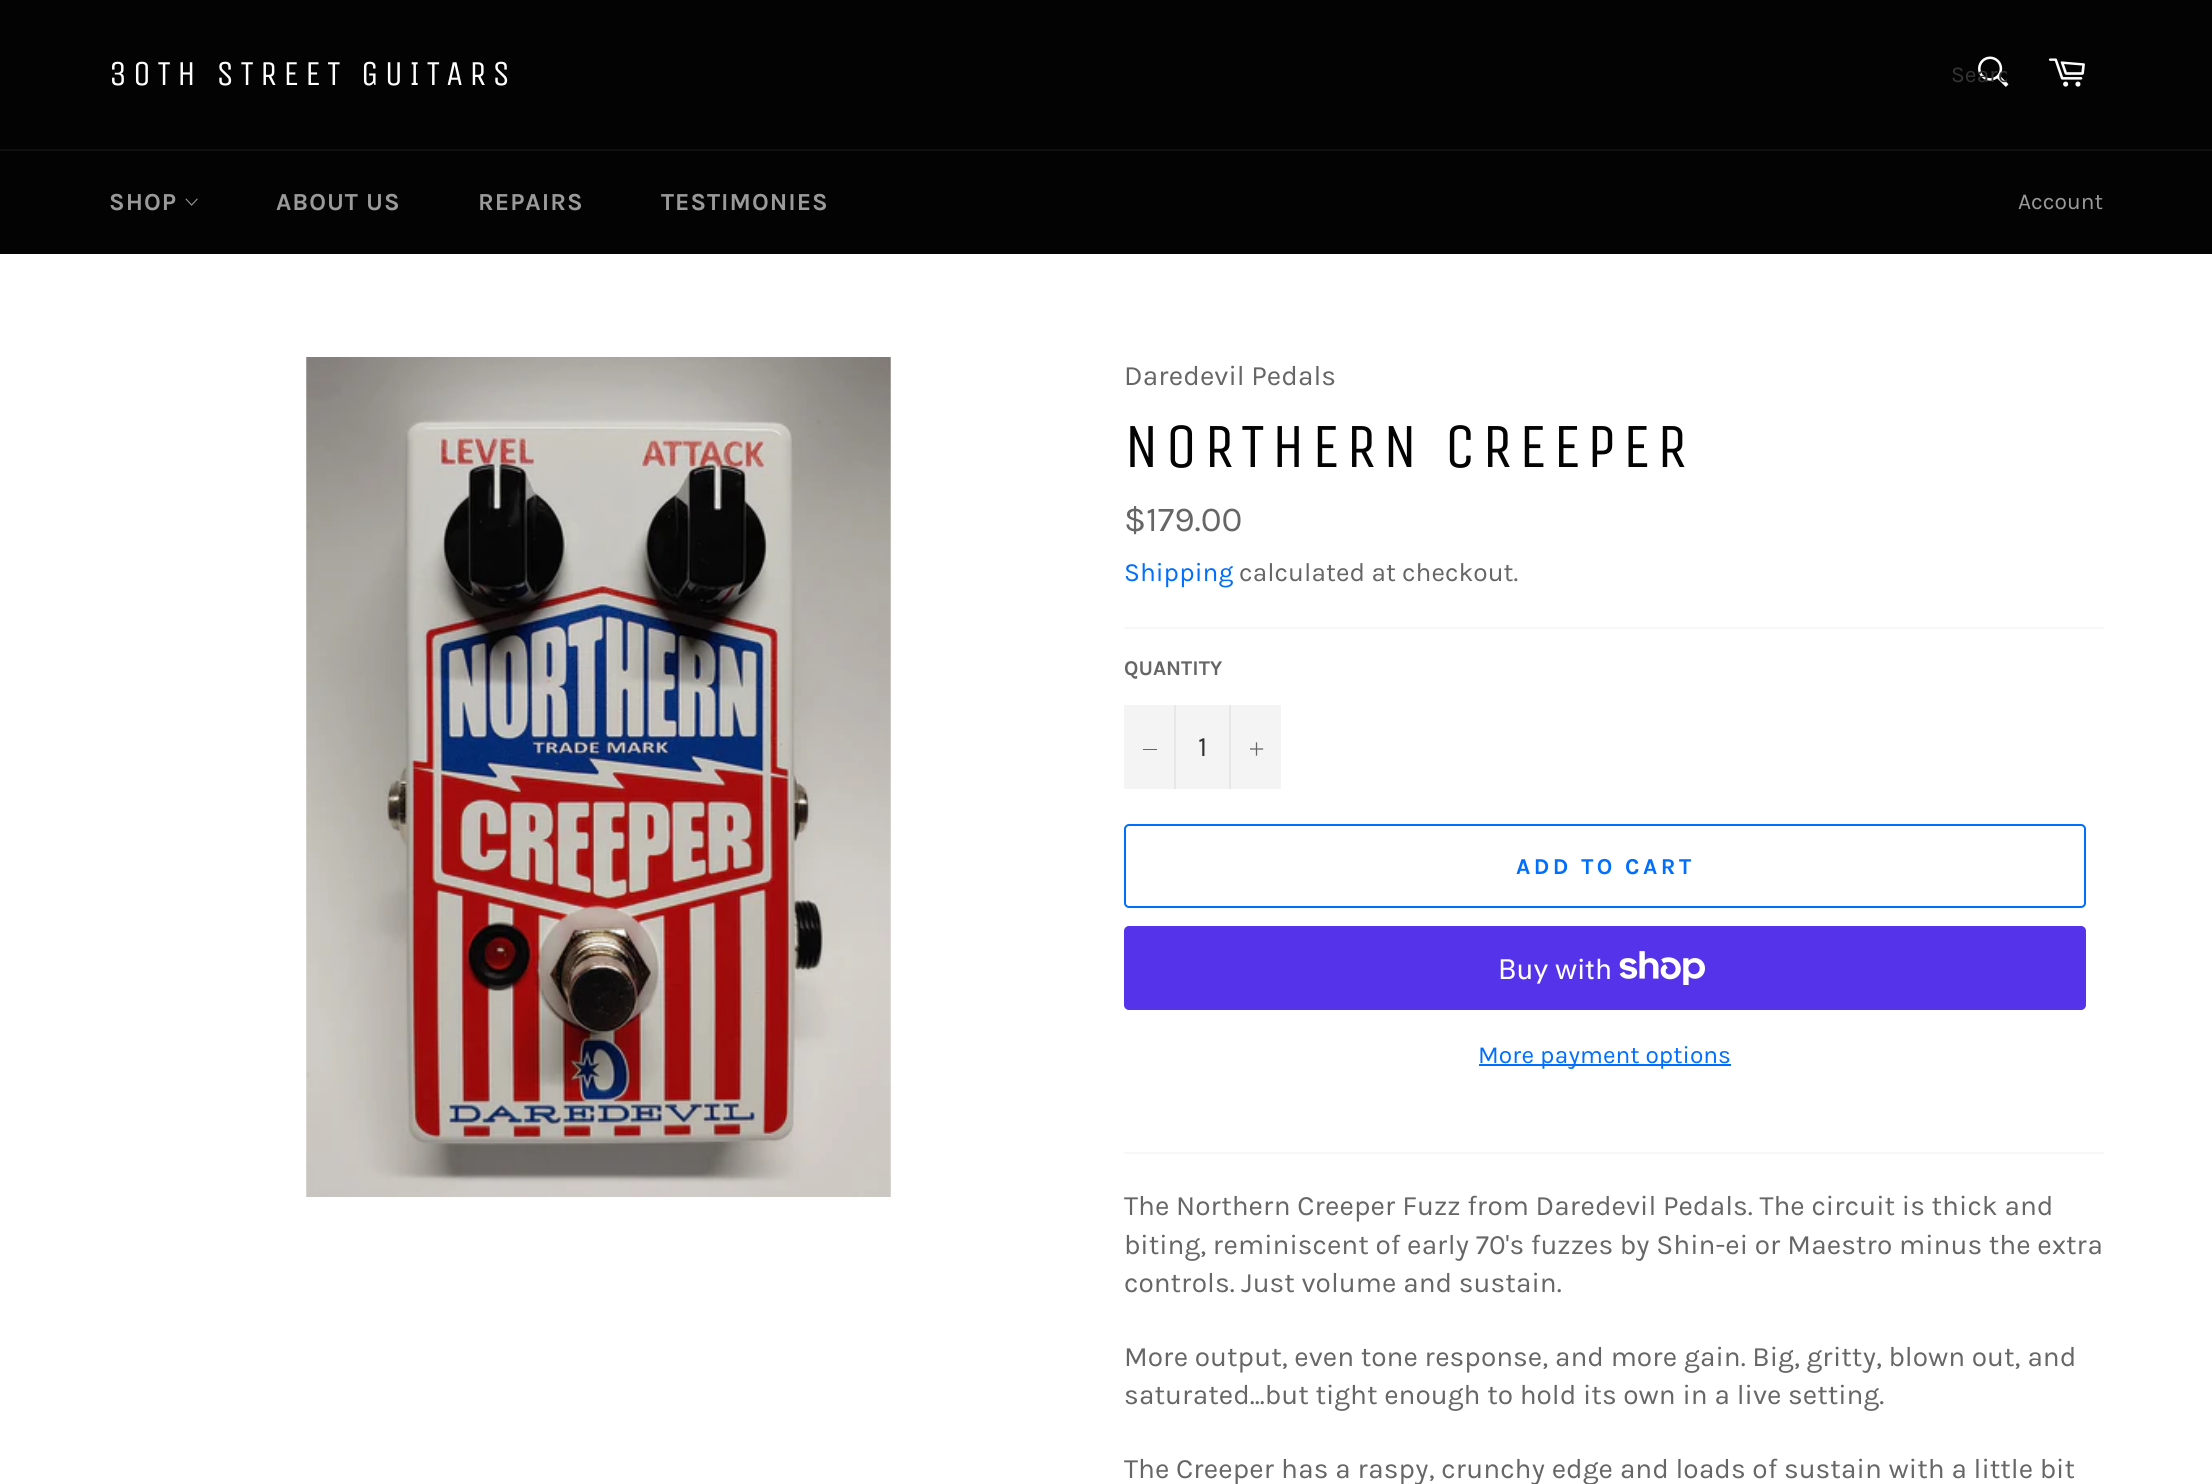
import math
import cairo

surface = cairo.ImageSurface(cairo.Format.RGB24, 2212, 1484)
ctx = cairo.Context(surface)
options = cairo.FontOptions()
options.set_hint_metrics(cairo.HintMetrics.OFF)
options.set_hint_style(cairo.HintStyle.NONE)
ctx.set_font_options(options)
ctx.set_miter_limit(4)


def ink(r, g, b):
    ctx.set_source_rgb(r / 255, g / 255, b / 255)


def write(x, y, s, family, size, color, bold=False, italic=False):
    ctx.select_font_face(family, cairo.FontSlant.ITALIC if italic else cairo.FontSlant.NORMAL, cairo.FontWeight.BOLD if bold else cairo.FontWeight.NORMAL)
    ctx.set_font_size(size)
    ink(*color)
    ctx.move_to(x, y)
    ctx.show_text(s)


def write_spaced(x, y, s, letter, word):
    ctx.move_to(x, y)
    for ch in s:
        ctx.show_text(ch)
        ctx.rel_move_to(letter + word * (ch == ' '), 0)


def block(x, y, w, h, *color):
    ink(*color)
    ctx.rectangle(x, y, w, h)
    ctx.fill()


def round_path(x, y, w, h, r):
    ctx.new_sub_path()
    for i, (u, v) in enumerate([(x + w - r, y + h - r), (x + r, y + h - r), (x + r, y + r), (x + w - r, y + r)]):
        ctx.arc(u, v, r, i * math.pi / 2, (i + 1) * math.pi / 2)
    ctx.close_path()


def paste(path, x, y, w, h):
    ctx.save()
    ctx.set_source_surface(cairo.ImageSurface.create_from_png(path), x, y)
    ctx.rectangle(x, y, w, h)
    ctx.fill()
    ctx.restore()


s1 = dict(family="Karla", size=22.75, color=(51, 51, 51))
s2 = dict(family="Karla", size=22.75, color=(154, 154, 154))
s3 = dict(family="Karla", size=28, color=(102, 102, 102))
s4 = dict(family="Karla", size=35, color=(102, 102, 102))
s5 = dict(family="Karla", size=26.25, color=(0, 110, 255))
s6 = dict(family="Karla", size=26.25, color=(102, 102, 102))
s7 = dict(family="Karla", size=21, color=(102, 102, 102), bold=True)
s8 = dict(family="Karla", size=28, color=(51, 51, 51))
s9 = dict(family="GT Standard", size=28, color=(255, 255, 255))
s10 = dict(family="Karla", size=24.5, color=(0, 110, 255))

ink(3, 3, 3)
ctx.paint()
ctx.select_font_face("Unica One")
ctx.set_font_size(35)
ink(255, 255, 255)
write_spaced(109, 85, "30TH STREET GUITARS", 6.25, 0)
paste("pic1.png", 1978, 56, 31, 31)
ctx.save()
ctx.rectangle(1951, 61, 56, 27)
ctx.clip()
write(1951, 82, "Searc", **s1)
ctx.restore()
paste("pic2.png", 2048, 58, 37, 29)
block(0, 149, 2212, 2, 16, 16, 16)
ctx.select_font_face("Karla", cairo.FontSlant.NORMAL, cairo.FontWeight.BOLD)
ctx.set_font_size(24.5)
ink(154, 154, 154)
write_spaced(109, 210, "SHOP", 1, 0)
paste("pic3.png", 185, 198, 13, 8)
write_spaced(276, 210, "ABOUT US", 1, 0)
write_spaced(478, 210, "REPAIRS", 1, 0)
write_spaced(661, 210, "TESTIMONIES", 1, 0)
write(2018, 209, "Account", **s2)
block(0, 254, 2212, 1230, 255, 255, 255)
paste("pic4.png", 306, 357, 585, 840)
write(1124, 385, "Daredevil Pedals", **s3)
ctx.select_font_face("Unica One")
ctx.set_font_size(63)
ink(3, 3, 3)
write_spaced(1124, 467, "NORTHERN CREEPER", 6.25, 0)
write(1124, 531, "$179.00", **s4)
write(1124, 581, "Shipping", **s5)
write(1239, 581, "calculated at checkout.", **s6)
block(1124, 627, 980, 2, 247, 247, 247)
write(1124, 675, "QUANTITY", **s7)
block(1124, 705, 157, 84, 244, 244, 244)
block(1174, 705, 2, 84, 231, 231, 231)
block(1143, 749, 14, 1, 102, 102, 102)
write(1198, 756, "1", **s8)
block(1229, 705, 2, 84, 231, 231, 231)
paste("pic5.png", 1250, 742, 14, 14)
round_path(1125, 825, 960, 82, 4)
ink(0, 110, 255)
ctx.stroke()
ctx.select_font_face("Karla", cairo.FontSlant.NORMAL, cairo.FontWeight.BOLD)
ctx.set_font_size(22.75)
write_spaced(1516, 874, "ADD TO CART", 3.5, 0)
ink(84, 51, 235)
round_path(1124, 926, 962, 84, 5)
ctx.fill()
write(1498, 979, "Buy with", **s9)
paste("pic6.png", 1619, 951, 86, 34)
block(1479, 1064, 252, 2, 0, 110, 255)
write(1478, 1063, "More payment options", **s10)
block(1124, 1152, 980, 2, 247, 247, 247)
write(1124, 1215, "The Northern Creeper Fuzz from Daredevil Pedals. The circuit is thick and", **s3)
write(1124, 1254, "biting, reminiscent of early 70's fuzzes by Shin-ei or Maestro minus the extra", **s3)
write(1124, 1292, "controls. Just volume and sustain.", **s3)
write(1124, 1366, "More output, even tone response, and more gain. Big, gritty, blown out, and", **s3)
write(1124, 1404, "saturated...but tight enough to hold its own in a live setting.", **s3)
write(1124, 1478, "The Creeper has a raspy, crunchy edge and loads of sustain with a little bit", **s3)
surface.write_to_png("screenshot.png")
